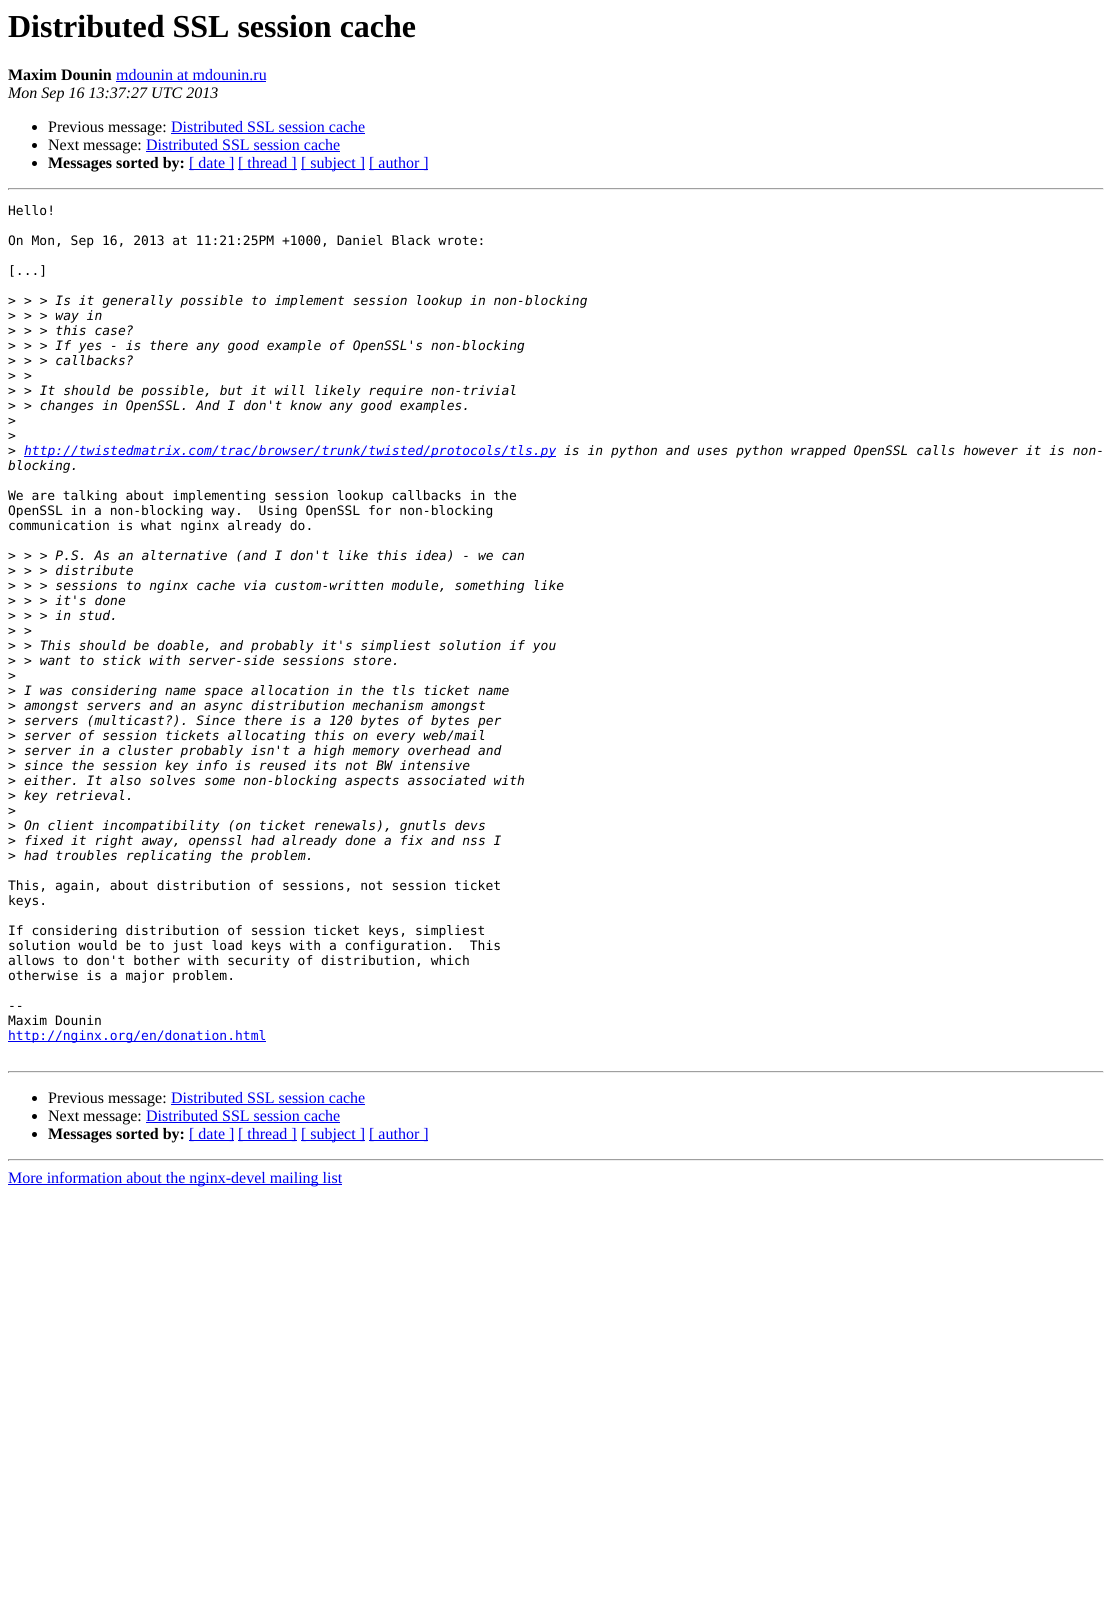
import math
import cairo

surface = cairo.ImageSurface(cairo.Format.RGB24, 1112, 1614)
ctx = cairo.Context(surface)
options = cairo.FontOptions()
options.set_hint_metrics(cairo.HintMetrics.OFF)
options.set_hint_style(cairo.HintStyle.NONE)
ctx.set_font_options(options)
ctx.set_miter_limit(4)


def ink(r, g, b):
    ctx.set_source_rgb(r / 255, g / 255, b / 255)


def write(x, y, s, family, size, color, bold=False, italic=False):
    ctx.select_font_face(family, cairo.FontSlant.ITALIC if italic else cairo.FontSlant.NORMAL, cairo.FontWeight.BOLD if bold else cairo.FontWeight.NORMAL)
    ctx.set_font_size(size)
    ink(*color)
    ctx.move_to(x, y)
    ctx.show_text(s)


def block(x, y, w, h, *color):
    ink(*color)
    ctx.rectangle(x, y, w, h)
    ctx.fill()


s1 = dict(family="Liberation Serif", size=32, color=(0, 0, 0), bold=True)
s2 = dict(family="Liberation Serif", size=16, color=(0, 0, 0), bold=True)
s3 = dict(family="Liberation Serif", size=16, color=(0, 0, 238))
s4 = dict(family="Liberation Serif", size=16, color=(0, 0, 0), italic=True)
s5 = dict(family="Liberation Serif", size=16, color=(0, 0, 0))
s6 = dict(family="DejaVu Sans Mono", size=13, color=(0, 0, 0))
s7 = dict(family="DejaVu Sans Mono", size=13, color=(0, 0, 0), italic=True)
s8 = dict(family="DejaVu Sans Mono", size=13, color=(0, 0, 238), italic=True)
s9 = dict(family="DejaVu Sans Mono", size=13, color=(0, 0, 238))

ink(255, 255, 255)
ctx.paint()
write(8, 37, "Distributed SSL session cache", **s1)
write(8, 80, "Maxim Dounin", **s2)
write(116, 80, "mdounin at mdounin.ru", **s3)
block(116, 81, 150, 1, 0, 0, 238)
write(8, 98, "Mon Sep 16 13:37:27 UTC 2013", **s4)
ctx.new_path()
ctx.arc(34.5, 127.5, 2.5, 0, 2 * math.pi)
ctx.fill()
write(48, 132, "Previous message:", **s5)
write(171, 132, "Distributed SSL session cache", **s3)
block(171, 133, 194, 1, 0, 0, 238)
ink(0, 0, 0)
ctx.new_path()
ctx.arc(34.5, 145.5, 2.5, 0, 2 * math.pi)
ctx.fill()
write(48, 150, "Next message:", **s5)
write(146, 150, "Distributed SSL session cache", **s3)
block(146, 151, 194, 1, 0, 0, 238)
ink(0, 0, 0)
ctx.new_path()
ctx.arc(34.5, 163.5, 2.5, 0, 2 * math.pi)
ctx.fill()
write(48, 168, "Messages sorted by:", **s2)
block(189, 169, 45, 1, 0, 0, 238)
write(189, 168, "[ date ]", **s3)
block(238, 169, 59, 1, 0, 0, 238)
write(238, 168, "[ thread ]", **s3)
block(301, 169, 64, 1, 0, 0, 238)
write(301, 168, "[ subject ]", **s3)
block(369, 169, 59, 1, 0, 0, 238)
write(369, 168, "[ author ]", **s3)
block(8, 188, 1096, 1, 159, 159, 159)
block(1103, 188, 1, 2, 238, 238, 238)
block(8, 189, 1096, 1, 238, 238, 238)
block(8, 188, 1, 2, 159, 159, 159)
write(8, 215, "Hello!", **s6)
write(8, 245, "On Mon, Sep 16, 2013 at 11:21:25PM +1000, Daniel Black wrote:", **s6)
write(8, 275, "[...]", **s6)
write(8, 305, ">", **s6)
write(24, 305, "> > Is it generally possible to implement session lookup in non-blocking", **s7)
write(8, 320, ">", **s6)
write(24, 320, "> > way in", **s7)
write(8, 335, ">", **s6)
write(24, 335, "> > this case?", **s7)
write(8, 350, ">", **s6)
write(24, 350, "> > If yes - is there any good example of OpenSSL's non-blocking", **s7)
write(8, 365, ">", **s6)
write(24, 365, "> > callbacks?", **s7)
write(8, 380, ">", **s6)
write(24, 380, ">", **s7)
write(8, 395, ">", **s6)
write(24, 395, "> It should be possible, but it will likely require non-trivial", **s7)
write(8, 410, ">", **s6)
write(24, 410, "> changes in OpenSSL. And I don't know any good examples.", **s7)
write(8, 425, ">", **s6)
write(8, 440, ">", **s6)
write(8, 455, ">", **s6)
block(24, 456, 532, 1, 0, 0, 238)
write(24, 455, "http://twistedmatrix.com/trac/browser/trunk/twisted/protocols/tls.py", **s8)
write(564, 455, "is in python and uses python wrapped OpenSSL calls however it is non-", **s7)
write(8, 470, "blocking.", **s7)
write(8, 500, "We are talking about implementing session lookup callbacks in the", **s6)
write(8, 515, "OpenSSL in a non-blocking way.  Using OpenSSL for non-blocking", **s6)
write(8, 530, "communication is what nginx already do.", **s6)
write(8, 560, ">", **s6)
write(24, 560, "> > P.S. As an alternative (and I don't like this idea) - we can", **s7)
write(8, 575, ">", **s6)
write(24, 575, "> > distribute", **s7)
write(8, 590, ">", **s6)
write(24, 590, "> > sessions to nginx cache via custom-written module, something like", **s7)
write(8, 605, ">", **s6)
write(24, 605, "> > it's done", **s7)
write(8, 620, ">", **s6)
write(24, 620, "> > in stud.", **s7)
write(8, 635, ">", **s6)
write(24, 635, ">", **s7)
write(8, 650, ">", **s6)
write(24, 650, "> This should be doable, and probably it's simpliest solution if you", **s7)
write(8, 665, ">", **s6)
write(24, 665, "> want to stick with server-side sessions store.", **s7)
write(8, 680, ">", **s6)
write(8, 695, ">", **s6)
write(24, 695, "I was considering name space allocation in the tls ticket name", **s7)
write(8, 710, ">", **s6)
write(24, 710, "amongst servers and an async distribution mechanism amongst", **s7)
write(8, 725, ">", **s6)
write(24, 725, "servers (multicast?). Since there is a 120 bytes of bytes per", **s7)
write(8, 740, ">", **s6)
write(24, 740, "server of session tickets allocating this on every web/mail", **s7)
write(8, 755, ">", **s6)
write(24, 755, "server in a cluster probably isn't a high memory overhead and", **s7)
write(8, 770, ">", **s6)
write(24, 770, "since the session key info is reused its not BW intensive", **s7)
write(8, 785, ">", **s6)
write(24, 785, "either. It also solves some non-blocking aspects associated with", **s7)
write(8, 800, ">", **s6)
write(24, 800, "key retrieval.", **s7)
write(8, 815, ">", **s6)
write(8, 830, ">", **s6)
write(24, 830, "On client incompatibility (on ticket renewals), gnutls devs", **s7)
write(8, 845, ">", **s6)
write(24, 845, "fixed it right away, openssl had already done a fix and nss I", **s7)
write(8, 860, ">", **s6)
write(24, 860, "had troubles replicating the problem.", **s7)
write(8, 890, "This, again, about distribution of sessions, not session ticket", **s6)
write(8, 905, "keys.", **s6)
write(8, 935, "If considering distribution of session ticket keys, simpliest", **s6)
write(8, 950, "solution would be to just load keys with a configuration.  This", **s6)
write(8, 965, "allows to don't bother with security of distribution, which", **s6)
write(8, 980, "otherwise is a major problem.", **s6)
write(8, 1010, "--", **s6)
write(8, 1025, "Maxim Dounin", **s6)
block(8, 1041, 258, 1, 0, 0, 238)
write(8, 1040, "http://nginx.org/en/donation.html", **s9)
block(8, 1071, 1096, 1, 159, 159, 159)
block(1103, 1071, 1, 2, 238, 238, 238)
block(8, 1072, 1096, 1, 238, 238, 238)
block(8, 1071, 1, 2, 159, 159, 159)
ink(0, 0, 0)
ctx.new_path()
ctx.arc(34.5, 1098.5, 2.5, 0, 2 * math.pi)
ctx.fill()
write(48, 1103, "Previous message:", **s5)
write(171, 1103, "Distributed SSL session cache", **s3)
block(171, 1104, 194, 1, 0, 0, 238)
ink(0, 0, 0)
ctx.new_path()
ctx.arc(34.5, 1116.5, 2.5, 0, 2 * math.pi)
ctx.fill()
write(48, 1121, "Next message:", **s5)
write(146, 1121, "Distributed SSL session cache", **s3)
block(146, 1122, 194, 1, 0, 0, 238)
ink(0, 0, 0)
ctx.new_path()
ctx.arc(34.5, 1134.5, 2.5, 0, 2 * math.pi)
ctx.fill()
write(48, 1139, "Messages sorted by:", **s2)
block(189, 1140, 45, 1, 0, 0, 238)
write(189, 1139, "[ date ]", **s3)
block(238, 1140, 59, 1, 0, 0, 238)
write(238, 1139, "[ thread ]", **s3)
block(301, 1140, 64, 1, 0, 0, 238)
write(301, 1139, "[ subject ]", **s3)
block(369, 1140, 59, 1, 0, 0, 238)
write(369, 1139, "[ author ]", **s3)
block(8, 1159, 1096, 1, 159, 159, 159)
block(1103, 1159, 1, 2, 238, 238, 238)
block(8, 1160, 1096, 1, 238, 238, 238)
block(8, 1159, 1, 2, 159, 159, 159)
block(8, 1184, 334, 1, 0, 0, 238)
write(8, 1183, "More information about the nginx-devel mailing list", **s3)
surface.write_to_png("screenshot.png")
